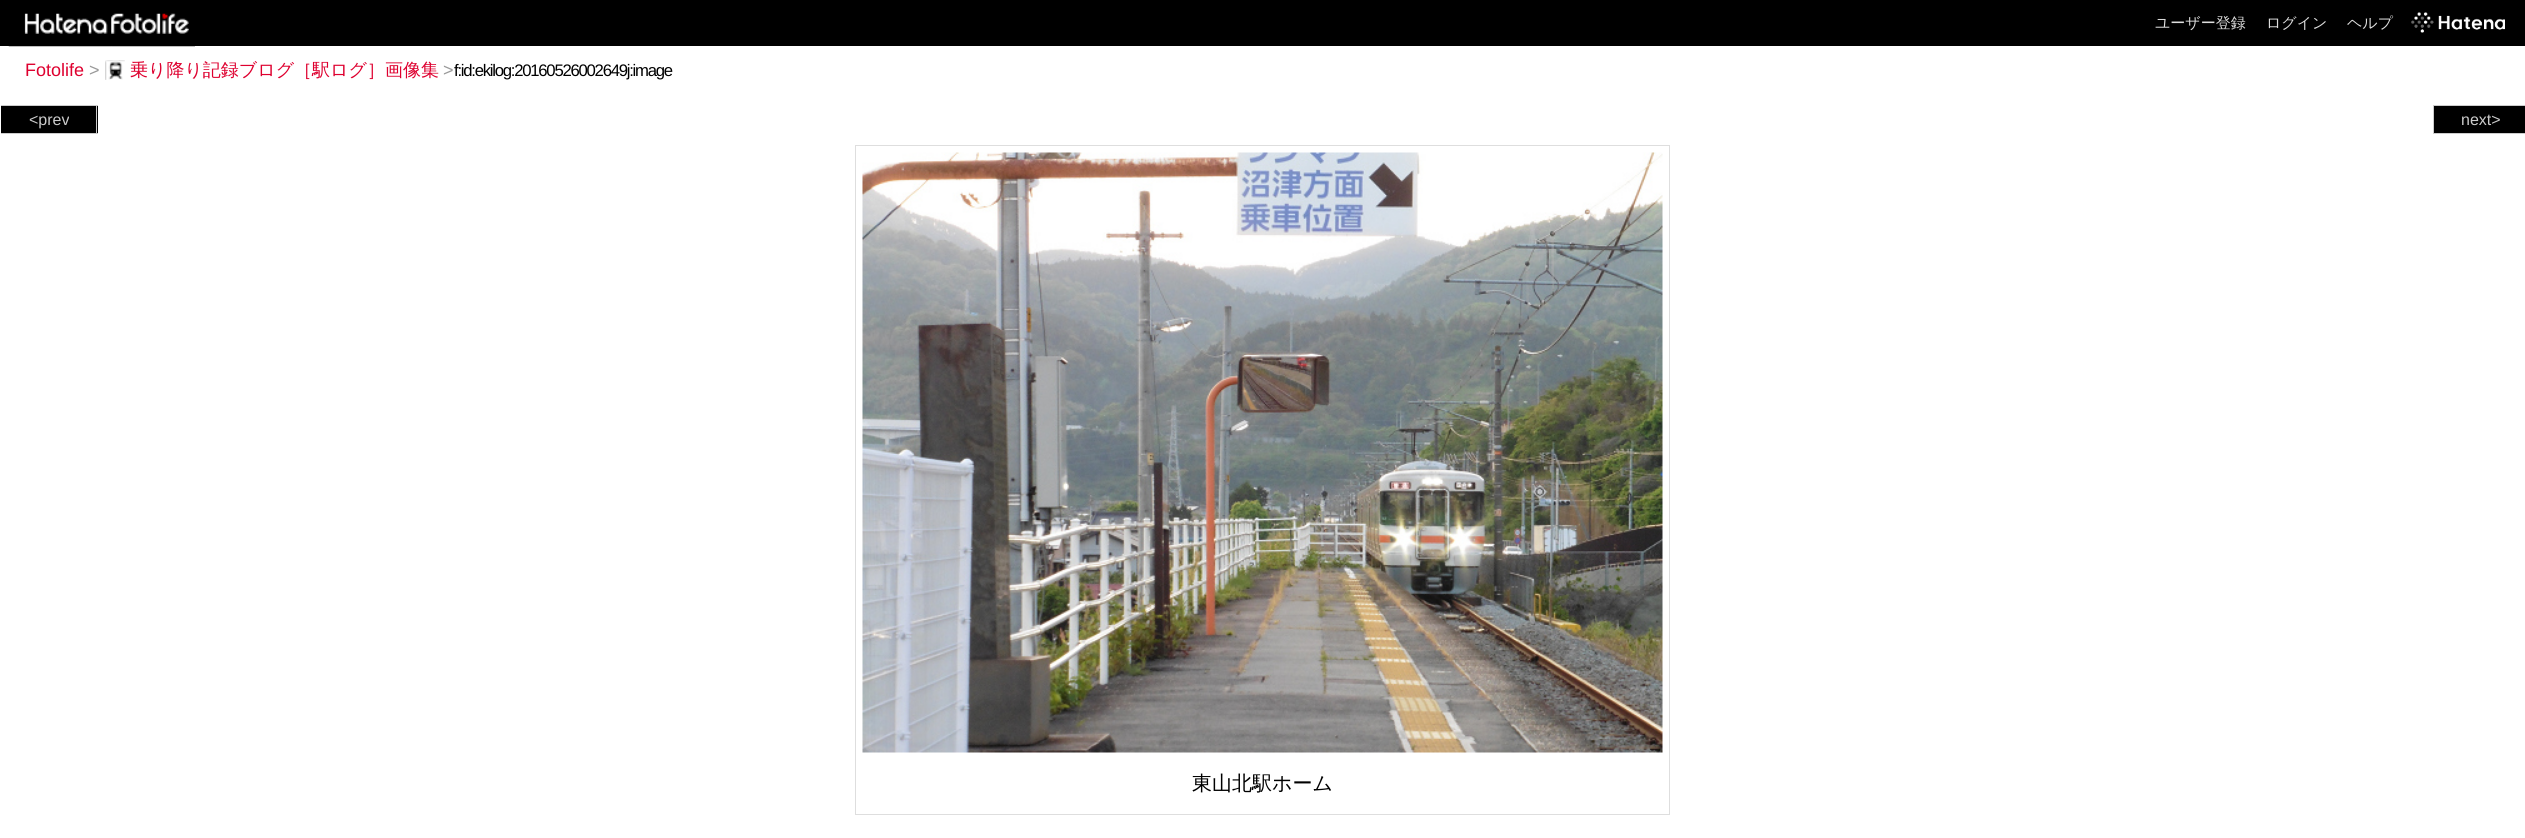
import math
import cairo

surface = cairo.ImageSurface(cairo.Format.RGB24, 2525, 838)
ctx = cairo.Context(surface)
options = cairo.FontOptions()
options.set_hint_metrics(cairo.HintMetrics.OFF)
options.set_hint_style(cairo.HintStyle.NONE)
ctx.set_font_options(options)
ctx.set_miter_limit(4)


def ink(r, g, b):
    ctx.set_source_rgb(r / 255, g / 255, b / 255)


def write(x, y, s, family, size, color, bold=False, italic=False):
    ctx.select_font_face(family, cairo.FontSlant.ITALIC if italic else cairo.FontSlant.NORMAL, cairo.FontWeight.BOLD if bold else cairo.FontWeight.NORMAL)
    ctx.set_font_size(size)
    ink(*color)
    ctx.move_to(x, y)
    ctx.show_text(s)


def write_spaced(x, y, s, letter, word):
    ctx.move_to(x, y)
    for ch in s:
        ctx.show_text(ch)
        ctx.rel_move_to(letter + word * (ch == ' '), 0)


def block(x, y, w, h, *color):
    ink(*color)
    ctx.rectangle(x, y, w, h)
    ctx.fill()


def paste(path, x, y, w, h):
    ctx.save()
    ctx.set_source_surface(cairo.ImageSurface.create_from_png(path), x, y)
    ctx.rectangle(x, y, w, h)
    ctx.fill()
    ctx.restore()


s1 = dict(family="WenQuanYi Zen Hei Medium", size=15, color=(221, 221, 221))
s2 = dict(family="Liberation Sans", size=18, color=(222, 0, 47))
s3 = dict(family="Liberation Sans", size=18, color=(153, 153, 153))
s4 = dict(family="WenQuanYi Zen Hei Medium", size=18, color=(222, 0, 47))
s5 = dict(family="Liberation Sans", size=16, color=(204, 204, 204))
s6 = dict(family="WenQuanYi Zen Hei Medium", size=20, color=(0, 0, 0))

ink(255, 255, 255)
ctx.paint()
block(0, 0, 2525, 46, 0, 0, 0)
paste("pic1.png", 8, 13, 104, 34)
paste("pic2.png", 111, 13, 84, 34)
write(2155, 28, "ユーザー登録", **s1)
write(2266, 28, "ログイン", **s1)
write(2347, 28, "ヘルプ", **s1)
paste("pic3.png", 2411, 12, 94, 21)
write(25, 76, "Fotolife", **s2)
write(89, 76, ">", **s3)
paste("pic4.png", 105, 60, 20, 20)
write(130, 76, "乗り降り記録ブログ［駅ログ］画像集", **s4)
write(443, 76, ">", **s3)
ctx.set_font_size(16.7)
ink(0, 0, 0)
write_spaced(454, 76, "f:id:ekilog:20160526002649j:image", -1.25, 0)
block(1, 106, 97, 27, 0, 0, 0)
block(1, 105, 97, 1, 204, 204, 204)
block(96, 105, 1, 29, 204, 204, 204)
block(1, 133, 97, 1, 204, 204, 204)
write(29, 125, "<prev", **s5)
block(2434, 106, 91, 27, 0, 0, 0)
block(2433, 105, 92, 1, 204, 204, 204)
block(2433, 133, 92, 1, 204, 204, 204)
block(2433, 105, 1, 29, 204, 204, 204)
write(2461, 125, "next>", **s5)
ctx.rectangle(855.5, 145.5, 814, 669)
ink(222, 222, 222)
ctx.set_line_width(1)
ctx.stroke()
paste("pic5.png", 862, 152, 801, 601)
write(1192, 790, "東山北駅ホーム", **s6)
surface.write_to_png("screenshot.png")
